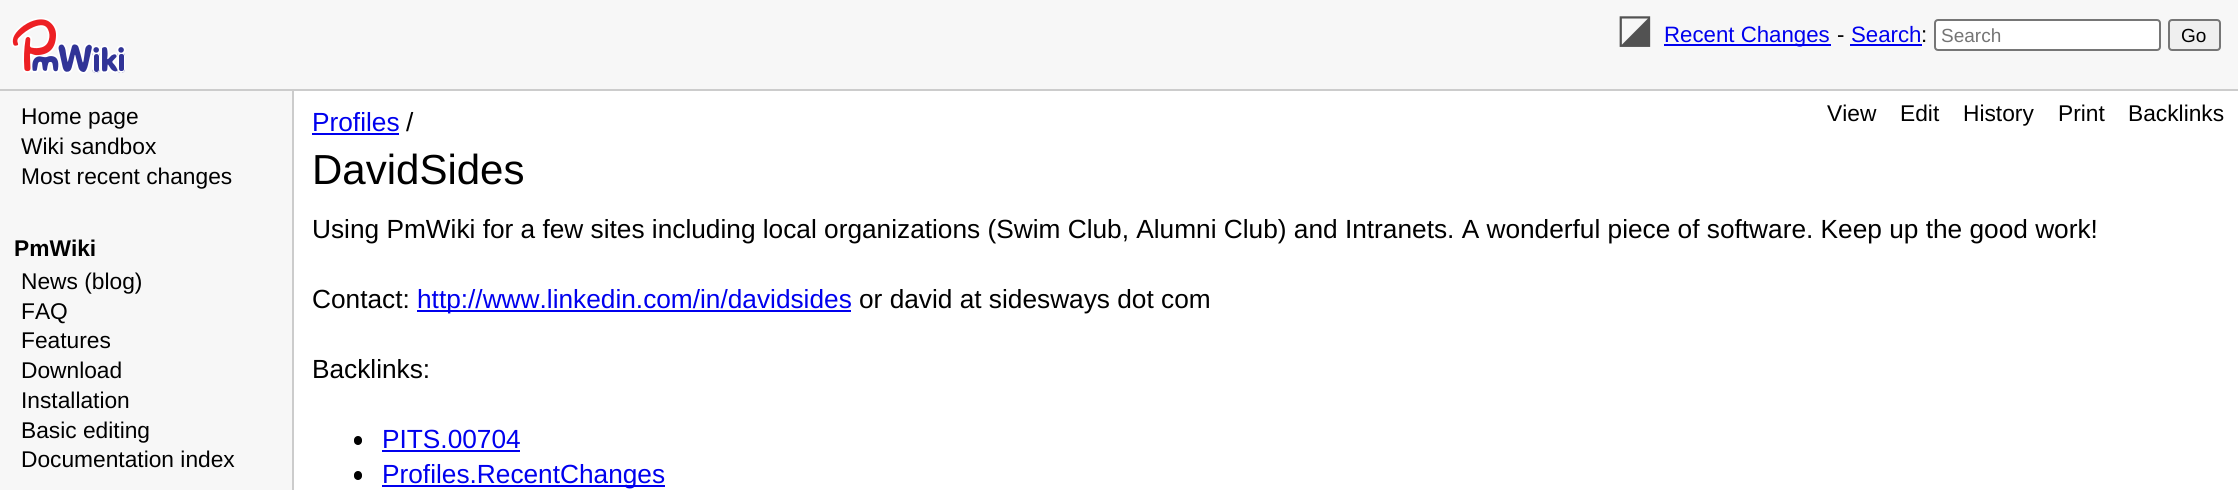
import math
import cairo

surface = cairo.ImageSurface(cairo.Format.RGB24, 2238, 490)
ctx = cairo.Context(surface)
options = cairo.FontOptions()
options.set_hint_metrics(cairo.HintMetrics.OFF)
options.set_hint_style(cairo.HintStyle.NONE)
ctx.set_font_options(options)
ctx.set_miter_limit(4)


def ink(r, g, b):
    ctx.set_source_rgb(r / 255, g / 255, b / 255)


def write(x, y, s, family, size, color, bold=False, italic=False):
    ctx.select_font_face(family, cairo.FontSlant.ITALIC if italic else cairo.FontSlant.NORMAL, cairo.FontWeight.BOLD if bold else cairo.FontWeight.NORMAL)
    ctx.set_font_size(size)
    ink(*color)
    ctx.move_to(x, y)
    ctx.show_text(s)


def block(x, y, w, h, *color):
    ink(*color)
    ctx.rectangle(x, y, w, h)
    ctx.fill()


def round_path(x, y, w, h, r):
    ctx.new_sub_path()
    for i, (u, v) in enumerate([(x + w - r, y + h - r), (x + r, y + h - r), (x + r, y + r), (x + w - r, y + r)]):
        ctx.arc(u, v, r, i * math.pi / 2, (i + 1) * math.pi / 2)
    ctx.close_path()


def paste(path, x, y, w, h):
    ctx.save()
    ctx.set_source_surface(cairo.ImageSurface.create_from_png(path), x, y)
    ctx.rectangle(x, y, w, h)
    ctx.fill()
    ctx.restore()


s1 = dict(family="DejaVu Sans", size=40, color=(82, 82, 82))
s2 = dict(family="Liberation Sans", size=22.25, color=(0, 0, 238))
s3 = dict(family="Liberation Sans", size=22.25, color=(0, 0, 0))
s4 = dict(family="Liberation Sans", size=19, color=(117, 117, 117))
s5 = dict(family="Liberation Sans", size=19, color=(0, 0, 0))
s6 = dict(family="Liberation Sans", size=22.75, color=(0, 0, 0))
s7 = dict(family="Liberation Sans", size=22.75, color=(0, 0, 0), bold=True)
s8 = dict(family="Liberation Sans", size=26.25, color=(0, 0, 238))
s9 = dict(family="Liberation Sans", size=26.25, color=(0, 0, 0))
s10 = dict(family="Liberation Sans", size=42, color=(0, 0, 0))

ink(247, 247, 247)
ctx.paint()
block(0, 89, 2238, 2, 204, 204, 204)
paste("pic1.png", 11, 18, 115, 56)
write(1616, 42, "◪", **s1)
block(1664, 44, 167, 2, 0, 0, 238)
write(1664, 42, "Recent Changes", **s2)
write(1837, 42, "-", **s3)
write(1851, 42, "Search", **s2)
write(1921, 42, ":", **s3)
block(1850, 44, 72, 2, 0, 0, 238)
ink(255, 255, 255)
round_path(1935, 20, 225, 30, 3)
ctx.fill_preserve()
ink(118, 118, 118)
ctx.stroke()
write(1941, 42, "Search", **s4)
ink(239, 239, 239)
round_path(2169, 20, 51, 30, 3)
ctx.fill_preserve()
ink(118, 118, 118)
ctx.stroke()
write(2181, 42, "Go", **s5)
block(292, 91, 2, 399, 204, 204, 204)
write(21, 124, "Home page", **s6)
write(21, 154, "Wiki sandbox", **s6)
write(21, 184, "Most recent changes", **s6)
write(14, 256, "PmWiki", **s7)
write(21, 289, "News (blog)", **s6)
write(21, 319, "FAQ", **s6)
write(21, 348, "Features", **s6)
write(21, 378, "Download", **s6)
write(21, 408, "Installation", **s6)
write(21, 438, "Basic editing", **s6)
write(21, 467, "Documentation index", **s6)
block(294, 91, 1944, 399, 255, 255, 255)
write(312, 131, "Profiles", **s8)
block(312, 133, 87, 2, 0, 0, 238)
write(406, 131, "/", **s9)
write(312, 184, "DavidSides", **s10)
write(1827, 121, "View", **s6)
write(1900, 121, "Edit", **s6)
write(1963, 121, "History", **s6)
write(2058, 121, "Print", **s6)
write(2128, 121, "Backlinks", **s6)
write(312, 238, "Using PmWiki for a few sites including local organizations (Swim Club, Alumni Club) and Intranets. A wonderful piece of software. Keep up the good work!", **s9)
write(312, 308, "Contact:", **s9)
block(417, 310, 434, 2, 0, 0, 238)
write(417, 308, "http://www.linkedin.com/in/davidsides", **s8)
write(859, 308, "or david at sidesways dot com", **s9)
write(312, 378, "Backlinks:", **s9)
round_path(354, 436, 8, 9, 4)
ctx.fill()
write(382, 448, "PITS.00704", **s8)
block(382, 450, 138, 2, 0, 0, 238)
ink(0, 0, 0)
round_path(354, 471, 8, 9, 4)
ctx.fill()
block(382, 485, 283, 2, 0, 0, 238)
write(382, 483, "Profiles.RecentChanges", **s8)
surface.write_to_png("screenshot.png")
